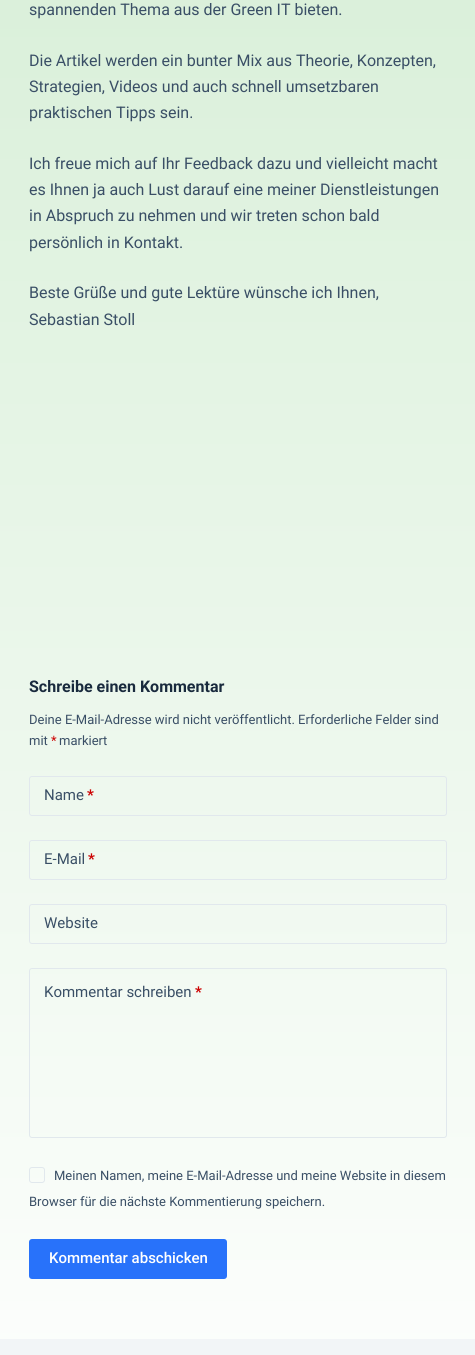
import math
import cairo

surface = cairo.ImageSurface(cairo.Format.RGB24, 475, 1355)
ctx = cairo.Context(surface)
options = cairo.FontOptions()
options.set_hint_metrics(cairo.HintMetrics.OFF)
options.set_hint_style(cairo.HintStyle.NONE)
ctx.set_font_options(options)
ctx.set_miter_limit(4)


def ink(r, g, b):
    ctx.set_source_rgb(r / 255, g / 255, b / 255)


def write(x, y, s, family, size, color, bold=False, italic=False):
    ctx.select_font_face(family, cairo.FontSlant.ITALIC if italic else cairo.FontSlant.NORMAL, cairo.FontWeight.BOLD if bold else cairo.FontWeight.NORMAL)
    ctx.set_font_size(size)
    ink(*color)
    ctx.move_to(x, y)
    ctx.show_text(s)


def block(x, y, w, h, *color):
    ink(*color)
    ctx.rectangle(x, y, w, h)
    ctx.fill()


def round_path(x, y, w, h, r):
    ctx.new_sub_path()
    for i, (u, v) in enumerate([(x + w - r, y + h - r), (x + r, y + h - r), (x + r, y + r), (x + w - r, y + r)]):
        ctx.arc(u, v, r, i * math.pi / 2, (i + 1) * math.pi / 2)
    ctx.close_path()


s1 = dict(family="Roboto", size=16, color=(58, 79, 102))
s2 = dict(family="Roboto", size=16, color=(25, 42, 61), bold=True)
s3 = dict(family="Roboto", size=13, color=(58, 79, 102))
s4 = dict(family="Roboto", size=13, color=(204, 0, 0))
s5 = dict(family="Roboto", size=15, color=(58, 79, 102))
s6 = dict(family="Roboto", size=15, color=(204, 0, 0), bold=True)
s7 = dict(family="Roboto Medium", size=15, color=(255, 255, 255))

ink(255, 255, 255)
ctx.paint()
gradient = cairo.LinearGradient(238, 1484, 238, -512)
gradient.add_color_stop_rgba(0, 1, 1, 1, 1)
gradient.add_color_stop_rgba(1, 0.808, 0.922, 0.808, 1)
ctx.set_source(gradient)
ctx.rectangle(0, 0, 475, 1339)
ctx.fill()
write(29, 15, "spannenden Thema aus der Green IT bieten.", **s1)
write(29, 66, "Die Artikel werden ein bunter Mix aus Theorie, Konzepten,", **s1)
write(29, 92, "Strategien, Videos und auch schnell umsetzbaren", **s1)
write(29, 118, "praktischen Tipps sein.", **s1)
write(29, 169, "Ich freue mich auf Ihr Feedback dazu und vielleicht macht", **s1)
write(29, 195, "es Ihnen ja auch Lust darauf eine meiner Dienstleistungen", **s1)
write(29, 221, "in Abspruch zu nehmen und wir treten schon bald", **s1)
write(29, 248, "persönlich in Kontakt.", **s1)
write(29, 298, "Beste Grüße und gute Lektüre wünsche ich Ihnen,", **s1)
write(29, 325, "Sebastian Stoll", **s1)
write(29, 692, "Schreibe einen Kommentar", **s2)
write(29, 724, "Deine E-Mail-Adresse wird nicht veröffentlicht. Erforderliche Felder sind", **s3)
write(29, 745, "mit", **s3)
write(51, 745, "*", **s4)
write(59, 745, "markiert", **s3)
round_path(29.5, 776.5, 417, 39, 2.5)
ink(225, 232, 237)
ctx.set_line_width(1)
ctx.stroke()
write(44, 800, "Name", **s5)
write(87, 800, "*", **s6)
round_path(29.5, 840.5, 417, 39, 2.5)
ink(225, 232, 237)
ctx.stroke()
write(44, 864, "E-Mail", **s5)
write(88, 864, "*", **s6)
round_path(29.5, 904.5, 417, 39, 2.5)
ink(225, 232, 237)
ctx.stroke()
write(44, 928, "Website", **s5)
round_path(29.5, 968.5, 417, 169, 2.5)
ink(225, 232, 237)
ctx.stroke()
write(44, 997, "Kommentar schreiben", **s5)
write(195, 997, "*", **s6)
round_path(29.5, 1167.5, 15, 15, 2.5)
ink(225, 232, 237)
ctx.stroke()
write(54, 1180, "Meinen Namen, meine E-Mail-Adresse und meine Website in diesem", **s3)
write(29, 1206, "Browser für die nächste Kommentierung speichern.", **s3)
ink(40, 114, 250)
round_path(29, 1239, 198, 40, 3)
ctx.fill()
write(49, 1263, "Kommentar abschicken", **s7)
block(0, 1339, 475, 16, 242, 245, 247)
surface.write_to_png("screenshot.png")
